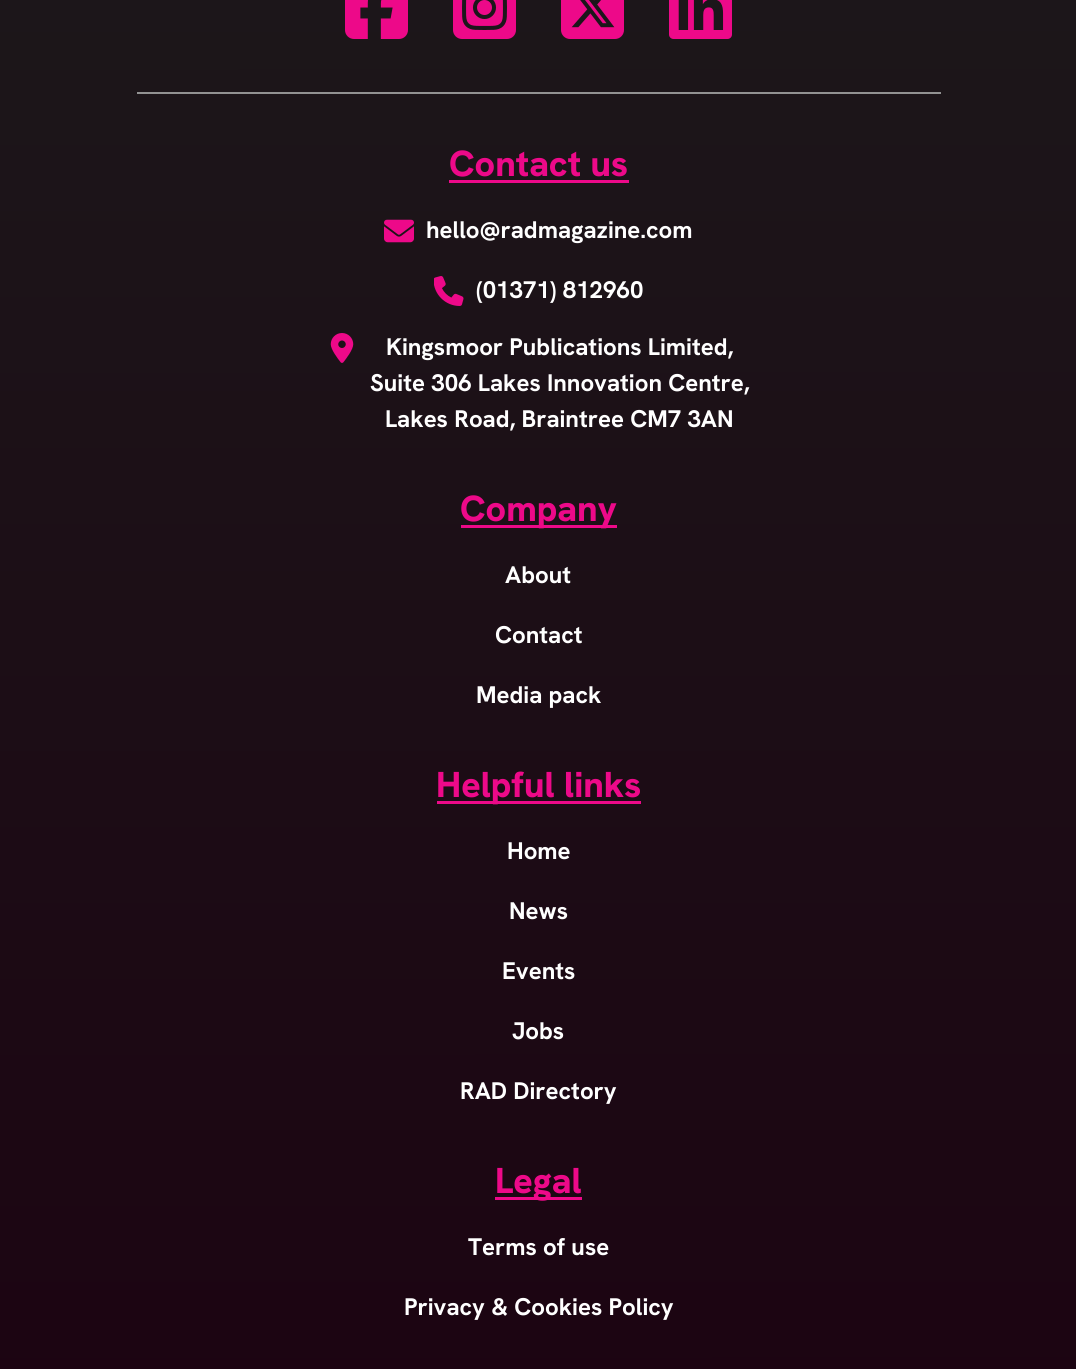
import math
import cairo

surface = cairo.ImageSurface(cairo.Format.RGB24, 1076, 1369)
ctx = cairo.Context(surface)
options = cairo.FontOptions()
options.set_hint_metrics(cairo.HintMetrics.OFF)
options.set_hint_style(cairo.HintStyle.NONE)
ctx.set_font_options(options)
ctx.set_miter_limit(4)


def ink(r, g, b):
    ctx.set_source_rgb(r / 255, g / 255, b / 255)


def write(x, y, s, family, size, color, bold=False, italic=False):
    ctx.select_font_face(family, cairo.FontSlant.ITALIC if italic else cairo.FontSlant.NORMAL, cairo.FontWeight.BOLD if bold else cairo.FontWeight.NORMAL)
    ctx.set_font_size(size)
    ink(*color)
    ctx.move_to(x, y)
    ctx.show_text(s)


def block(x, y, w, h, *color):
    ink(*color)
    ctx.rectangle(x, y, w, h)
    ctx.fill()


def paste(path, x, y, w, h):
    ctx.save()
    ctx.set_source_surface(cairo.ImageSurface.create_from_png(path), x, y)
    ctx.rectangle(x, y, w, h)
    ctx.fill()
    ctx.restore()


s1 = dict(family="Hanken Grotesk ExtraBold", size=36, color=(237, 9, 137))
s2 = dict(family="Hanken Grotesk", size=24, color=(255, 255, 255), bold=True)

ink(255, 255, 255)
ctx.paint()
gradient = cairo.LinearGradient(538, -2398, 539, 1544)
gradient.add_color_stop_rgba(0, 0.11, 0.11, 0.11, 1)
gradient.add_color_stop_rgba(0.5, 0.11, 0.11, 0.11, 1)
gradient.add_color_stop_rgba(1, 0.11, 0.008, 0.067, 1)
ctx.set_source(gradient)
ctx.rectangle(0, 0, 1076, 1369)
ctx.fill()
block(137, 92, 804, 2, 146, 146, 146)
paste("pic1.png", 345, 0, 63, 39)
paste("pic2.png", 453, 0, 63, 39)
paste("pic3.png", 561, 0, 63, 39)
paste("pic4.png", 669, 0, 63, 39)
write(449, 176, "Contact us", **s1)
block(449, 180, 180, 3, 237, 9, 137)
paste("pic5.png", 384, 219, 30, 24)
write(426, 238, "hello@radmagazine.com", **s2)
paste("pic6.png", 434, 276, 30, 30)
write(476, 298, "(01371) 812960", **s2)
paste("pic7.png", 330, 333, 24, 30)
write(386, 355, "Kingsmoor Publications Limited,", **s2)
write(370, 391, "Suite 306 Lakes Innovation Centre,", **s2)
write(385, 427, "Lakes Road, Braintree CM7 3AN", **s2)
block(461, 525, 156, 3, 237, 9, 137)
write(460, 521, "Company", **s1)
write(505, 583, "About", **s2)
write(495, 643, "Contact", **s2)
write(476, 703, "Media pack", **s2)
block(437, 801, 204, 3, 237, 9, 137)
write(436, 797, "Helpful links", **s1)
write(507, 859, "Home", **s2)
write(509, 919, "News", **s2)
write(502, 979, "Events", **s2)
write(512, 1039, "Jobs", **s2)
write(460, 1099, "RAD Directory", **s2)
block(495, 1197, 87, 3, 237, 9, 137)
write(495, 1193, "Legal", **s1)
write(468, 1255, "Terms of use", **s2)
write(404, 1315, "Privacy & Cookies Policy", **s2)
surface.write_to_png("screenshot.png")
